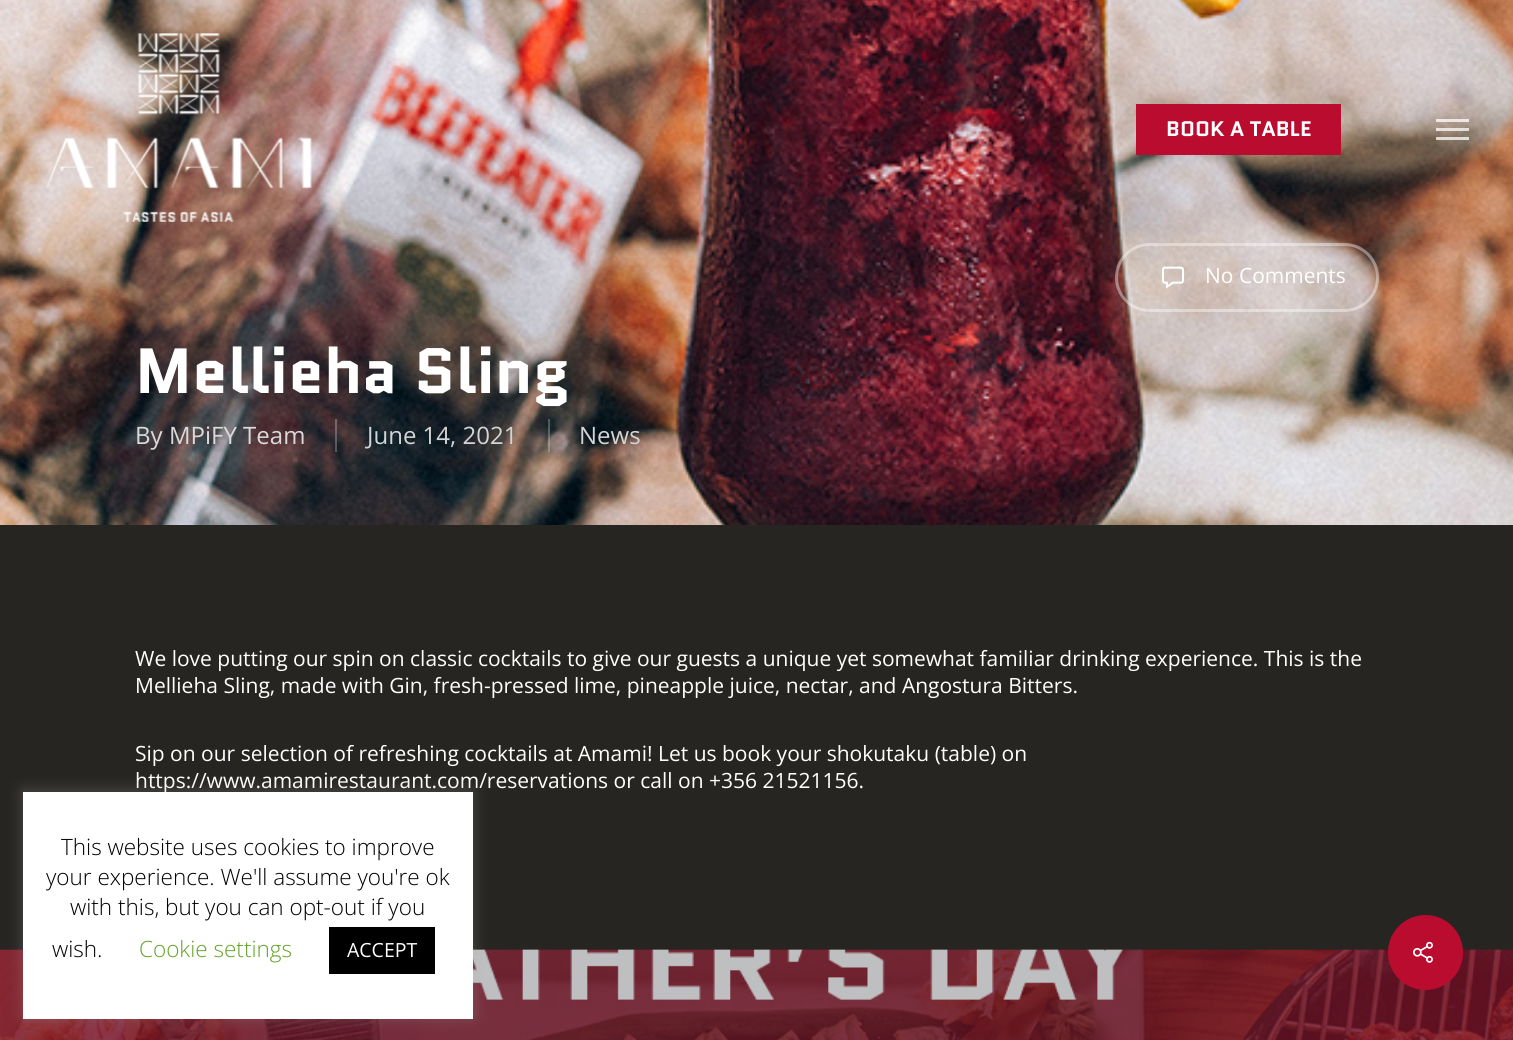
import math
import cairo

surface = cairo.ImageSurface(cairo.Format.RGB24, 1513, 1040)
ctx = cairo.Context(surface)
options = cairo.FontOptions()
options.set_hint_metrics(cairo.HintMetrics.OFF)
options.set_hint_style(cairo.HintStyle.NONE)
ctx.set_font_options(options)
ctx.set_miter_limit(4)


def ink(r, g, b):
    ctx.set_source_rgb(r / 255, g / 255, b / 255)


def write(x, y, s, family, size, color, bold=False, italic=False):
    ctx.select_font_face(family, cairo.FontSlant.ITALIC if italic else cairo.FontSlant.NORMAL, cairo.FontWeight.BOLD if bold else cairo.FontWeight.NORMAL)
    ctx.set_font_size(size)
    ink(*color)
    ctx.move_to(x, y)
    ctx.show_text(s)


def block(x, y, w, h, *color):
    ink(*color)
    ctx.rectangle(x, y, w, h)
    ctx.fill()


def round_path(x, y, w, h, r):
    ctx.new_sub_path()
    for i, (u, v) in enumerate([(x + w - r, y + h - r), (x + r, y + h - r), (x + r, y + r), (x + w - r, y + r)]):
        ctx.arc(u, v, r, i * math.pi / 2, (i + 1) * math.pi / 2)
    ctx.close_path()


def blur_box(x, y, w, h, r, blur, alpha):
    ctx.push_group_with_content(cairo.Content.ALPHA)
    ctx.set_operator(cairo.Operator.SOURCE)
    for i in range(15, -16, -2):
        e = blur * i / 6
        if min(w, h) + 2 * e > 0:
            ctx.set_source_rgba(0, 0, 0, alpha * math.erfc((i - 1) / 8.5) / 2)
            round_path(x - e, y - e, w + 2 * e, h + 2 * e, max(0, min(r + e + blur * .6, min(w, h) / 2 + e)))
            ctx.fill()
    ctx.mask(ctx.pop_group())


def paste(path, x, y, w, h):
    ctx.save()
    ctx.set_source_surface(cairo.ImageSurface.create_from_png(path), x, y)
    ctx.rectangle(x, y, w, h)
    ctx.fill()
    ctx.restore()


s1 = dict(family="Quantico", size=21, color=(255, 255, 255), bold=True)
s2 = dict(family="Open Sans", size=21, color=(255, 255, 255))
s3 = dict(family="Quantico", size=63.75, color=(255, 255, 255), bold=True)
s4 = dict(family="Open Sans", size=24, color=(220, 217, 218))
s5 = dict(family="Open Sans", size=24, color=(211, 212, 213))
s6 = dict(family="Open Sans Light", size=22.5, color=(0, 0, 0))
s7 = dict(family="Open Sans Light", size=22.5, color=(98, 163, 41))
s8 = dict(family="Open Sans", size=19.5, color=(255, 255, 255))

ink(38, 37, 33)
ctx.paint()
paste("pic2.png", 0, 0, 1513, 525)
paste("pic1.png", 46, 33, 266, 189)
block(1136, 104, 205, 51, 186, 12, 47)
write(1166, 136, "BOOK A TABLE", **s1)
ctx.set_source_rgba(1, 1, 1, 0.75)
ctx.rectangle(1436, 119, 33, 3)
ctx.fill()
ctx.rectangle(1436, 137, 33, 3)
ctx.fill()
ctx.rectangle(1436, 128, 33, 3)
ctx.fill()
round_path(1116.5, 244.5, 261, 66, 33)
ctx.set_source_rgba(1, 1, 1, 0.4)
ctx.set_line_width(3)
ctx.stroke()
paste("pic3.png", 1162, 266, 22, 23)
write(1205, 283, "No Comments", **s2)
write(135, 393, "Mellieha Sling", **s3)
write(135, 444, "By", **s4)
write(169, 444, "MPiFY Team", **s4)
write(367, 444, "June 14, 2021", **s5)
ctx.set_source_rgba(1, 1, 1, 0.25)
ctx.rectangle(335, 419, 2, 33)
ctx.fill()
write(579, 444, "News", **s5)
ctx.set_source_rgba(1, 1, 1, 0.25)
ctx.rectangle(548, 419, 2, 33)
ctx.fill()
write(135, 666, "We love putting our spin on classic cocktails to give our guests a unique yet somewhat familiar drinking experience. This is the", **s2)
write(135, 693, "Mellieha Sling, made with Gin, fresh-pressed lime, pineapple juice, nectar, and Angostura Bitters.", **s2)
write(135, 761, "Sip on our selection of refreshing cocktails at Amami! Let us book your shokutaku (table) on", **s2)
write(135, 788, "https://www.amamirestaurant.com/reservations or call on +356 21521156.", **s2)
paste("pic4.png", 0, 949, 1513, 91)
ink(186, 12, 47)
ctx.arc(1425.5, 952.5, 37.5, 0, 2 * math.pi)
ctx.fill()
paste("pic5.png", 1413, 941, 20, 22)
ink(172, 171, 171)
blur_box(23, 791, 450, 226, 0, 7.5, 0.3)
block(23, 792, 450, 227, 255, 255, 255)
write(61, 855, "This website uses cookies to improve", **s6)
write(46, 885, "your experience. We'll assume you're ok", **s6)
write(70, 915, "with this, but you can opt-out if you", **s6)
write(52, 957, "wish.", **s6)
write(139, 957, "Cookie settings", **s7)
block(329, 927, 106, 47, 0, 0, 0)
write(347, 957, "ACCEPT", **s8)
surface.write_to_png("screenshot.png")
